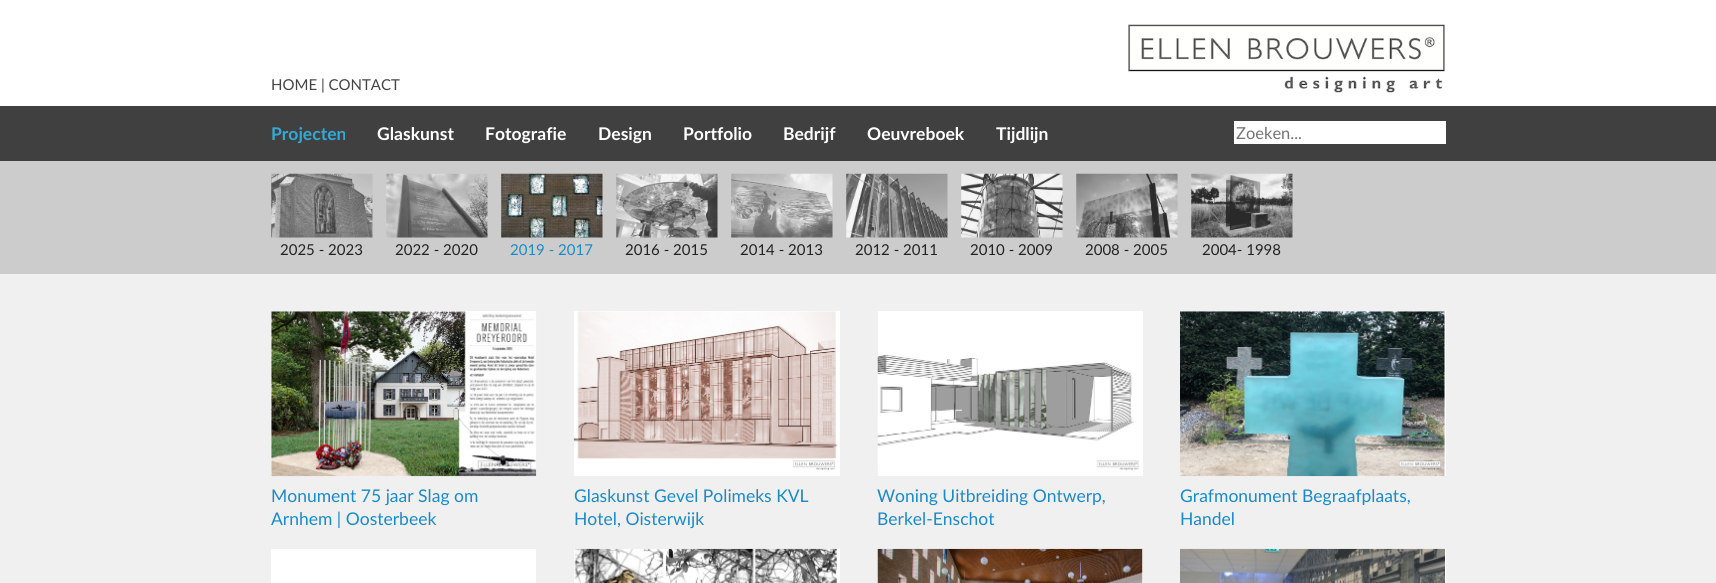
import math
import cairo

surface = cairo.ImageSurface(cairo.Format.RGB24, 1716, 583)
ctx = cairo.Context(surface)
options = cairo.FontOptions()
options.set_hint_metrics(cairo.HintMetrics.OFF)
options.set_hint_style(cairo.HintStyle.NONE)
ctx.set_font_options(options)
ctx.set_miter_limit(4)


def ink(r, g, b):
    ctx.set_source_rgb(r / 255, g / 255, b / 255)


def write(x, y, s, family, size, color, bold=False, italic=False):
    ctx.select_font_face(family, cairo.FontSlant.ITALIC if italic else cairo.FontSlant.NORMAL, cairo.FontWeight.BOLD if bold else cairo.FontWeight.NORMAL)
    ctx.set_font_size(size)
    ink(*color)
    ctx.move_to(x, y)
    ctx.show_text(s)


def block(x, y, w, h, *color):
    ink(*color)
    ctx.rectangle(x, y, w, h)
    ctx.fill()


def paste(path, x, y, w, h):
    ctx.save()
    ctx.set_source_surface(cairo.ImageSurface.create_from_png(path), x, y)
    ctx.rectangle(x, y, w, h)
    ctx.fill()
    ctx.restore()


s1 = dict(family="Lato", size=15, color=(68, 68, 68))
s2 = dict(family="Lato", size=17.5, color=(51, 169, 213), bold=True)
s3 = dict(family="Lato", size=17.5, color=(255, 255, 255), bold=True)
s4 = dict(family="Lato", size=16.5, color=(117, 117, 117))
s5 = dict(family="Lato", size=15, color=(34, 34, 34))
s6 = dict(family="Lato", size=15, color=(27, 138, 198))
s7 = dict(family="Lato", size=17.5, color=(27, 138, 198))

ink(64, 64, 64)
ctx.paint()
block(0, 0, 1716, 106, 255, 255, 255)
write(271, 90, "HOME | CONTACT", **s1)
paste("pic1.png", 1128, 24, 317, 69)
write(271, 140, "Projecten", **s2)
write(377, 140, "Glaskunst", **s3)
write(485, 140, "Fotografie", **s3)
write(598, 140, "Design", **s3)
write(683, 140, "Portfolio", **s3)
write(783, 140, "Bedrijf", **s3)
write(867, 140, "Oeuvreboek", **s3)
write(996, 140, "Tijdlijn", **s3)
block(1234, 121, 212, 23, 255, 255, 255)
write(1236, 139, "Zoeken...", **s4)
block(0, 161, 1716, 113, 204, 204, 204)
paste("pic2.png", 271, 173, 102, 65)
write(280, 255, "2025 - 2023", **s5)
paste("pic3.png", 386, 173, 102, 65)
write(395, 255, "2022 - 2020", **s5)
paste("pic4.png", 501, 173, 102, 65)
write(510, 255, "2019 - 2017", **s6)
paste("pic5.png", 616, 173, 102, 65)
write(625, 255, "2016 - 2015", **s5)
paste("pic6.png", 731, 173, 102, 65)
write(740, 255, "2014 - 2013", **s5)
paste("pic7.png", 846, 173, 102, 65)
write(855, 255, "2012 - 2011", **s5)
paste("pic8.png", 961, 173, 102, 65)
write(970, 255, "2010 - 2009", **s5)
paste("pic9.png", 1076, 173, 102, 65)
write(1085, 255, "2008 - 2005", **s5)
paste("pic10.png", 1191, 173, 102, 65)
write(1202, 255, "2004- 1998", **s5)
block(0, 274, 1716, 309, 240, 240, 240)
block(271, 311, 265, 165, 255, 255, 255)
paste("pic11.png", 271, 311, 266, 166)
write(271, 502, "Monument 75 jaar Slag om", **s7)
write(271, 525, "Arnhem | Oosterbeek", **s7)
block(574, 311, 266, 165, 255, 255, 255)
paste("pic12.png", 573, 311, 265, 160)
write(574, 502, "Glaskunst Gevel Polimeks KVL", **s7)
write(574, 525, "Hotel, Oisterwijk", **s7)
block(878, 311, 265, 165, 255, 255, 255)
paste("pic13.png", 877, 355, 262, 116)
write(877, 502, "Woning Uitbreiding Ontwerp,", **s7)
write(877, 525, "Berkel-Enschot", **s7)
block(1180, 311, 266, 165, 255, 255, 255)
paste("pic14.png", 1180, 311, 265, 166)
write(1180, 502, "Grafmonument Begraafplaats,", **s7)
write(1180, 525, "Handel", **s7)
block(271, 549, 265, 34, 255, 255, 255)
block(837, 549, 3, 34, 255, 255, 255)
paste("pic15.png", 574, 548, 263, 35)
block(1142, 549, 1, 34, 255, 255, 255)
paste("pic16.png", 877, 548, 266, 35)
block(1445, 549, 1, 34, 255, 255, 255)
paste("pic17.png", 1180, 548, 265, 35)
surface.write_to_png("screenshot.png")
